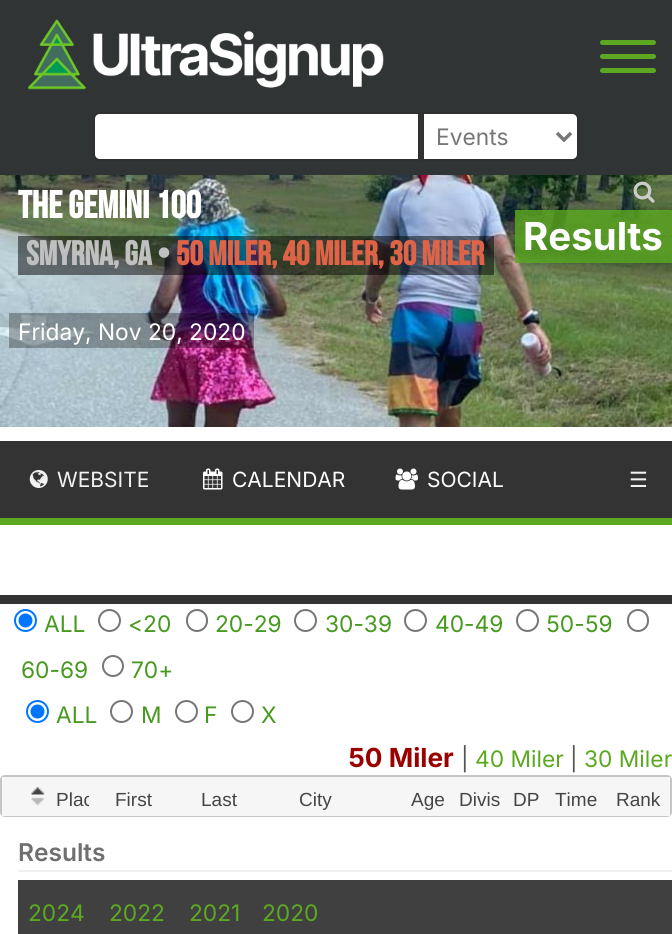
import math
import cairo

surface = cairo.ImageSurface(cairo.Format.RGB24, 672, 934)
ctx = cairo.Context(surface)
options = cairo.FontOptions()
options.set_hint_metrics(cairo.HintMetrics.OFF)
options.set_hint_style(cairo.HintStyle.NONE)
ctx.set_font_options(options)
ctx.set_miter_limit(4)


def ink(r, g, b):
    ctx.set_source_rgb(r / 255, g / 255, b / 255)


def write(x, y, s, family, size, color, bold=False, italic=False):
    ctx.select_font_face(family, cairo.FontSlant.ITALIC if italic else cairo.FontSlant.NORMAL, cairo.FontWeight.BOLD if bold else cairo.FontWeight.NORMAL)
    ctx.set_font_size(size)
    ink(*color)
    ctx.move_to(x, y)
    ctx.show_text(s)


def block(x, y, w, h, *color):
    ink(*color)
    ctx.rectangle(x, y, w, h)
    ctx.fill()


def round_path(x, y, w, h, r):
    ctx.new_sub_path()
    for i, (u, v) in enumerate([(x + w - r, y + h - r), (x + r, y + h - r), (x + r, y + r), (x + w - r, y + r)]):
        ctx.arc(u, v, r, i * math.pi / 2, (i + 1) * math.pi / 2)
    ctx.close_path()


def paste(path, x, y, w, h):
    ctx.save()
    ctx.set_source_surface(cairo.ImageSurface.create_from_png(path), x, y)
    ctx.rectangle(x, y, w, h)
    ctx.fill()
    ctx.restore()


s1 = dict(family="Inter", size=22.75, color=(119, 119, 119))
s2 = dict(family="Bebas Neue", size=38.5, color=(255, 255, 255), bold=True)
s3 = dict(family="Bebas Neue", size=34.1, color=(192, 192, 192), bold=True)
s4 = dict(family="Bebas Neue", size=34.1, color=(223, 99, 71), bold=True)
s5 = dict(family="Inter", size=38.5, color=(255, 255, 255), bold=True)
s6 = dict(family="Inter", size=22.75, color=(255, 255, 255))
s7 = dict(family="Inter", size=21, color=(242, 242, 242))
s8 = dict(family="Inter", size=21, color=(255, 255, 255))
s9 = dict(family="DejaVu Sans", size=21, color=(242, 242, 242))
s10 = dict(family="Inter", size=22.75, color=(71, 153, 31))
s11 = dict(family="Inter", size=26.25, color=(153, 0, 0), bold=True)
s12 = dict(family="Inter", size=22.75, color=(85, 85, 85))
s13 = dict(family="Inter", size=22.75, color=(92, 169, 33))
s14 = dict(family="Liberation Sans", size=19, color=(69, 69, 69))
s15 = dict(family="Inter SemiBold", size=24.5, color=(111, 111, 111))

ink(255, 255, 255)
ctx.paint()
block(0, 0, 672, 175, 48, 52, 52)
paste("pic1.png", 28, 19, 356, 71)
ink(92, 169, 33)
round_path(600, 54, 56, 5, 2.5)
ctx.fill()
round_path(600, 40, 56, 5, 2.5)
ctx.fill()
round_path(600, 68, 56, 5, 2.5)
ctx.fill()
ink(255, 255, 255)
ctx.new_path()
ctx.move_to(100, 113)
ctx.line_to(419, 113)
ctx.line_to(419, 160)
ctx.line_to(100, 160)
ctx.curve_to(96.5, 160, 94, 157.5, 94, 154)
ctx.line_to(94, 119)
ctx.curve_to(94, 115.5, 96.5, 113, 100, 113)
ctx.close_path()
ctx.fill_preserve()
ink(48, 48, 48)
ctx.stroke()
ink(255, 255, 255)
ctx.new_path()
ctx.move_to(423, 113)
ctx.line_to(572, 113)
ctx.curve_to(575.5, 113, 578, 115.5, 578, 119)
ctx.line_to(578, 154)
ctx.curve_to(578, 157.5, 575.5, 160, 572, 160)
ctx.line_to(423, 160)
ctx.close_path()
ctx.fill_preserve()
ink(48, 48, 48)
ctx.stroke()
ctx.new_path()
ctx.move_to(557, 133)
ctx.line_to(564, 140)
ctx.line_to(571, 133)
ink(119, 119, 119)
ctx.set_line_width(3.5)
ctx.stroke()
write(436, 145, "Events", **s1)
paste("pic2.png", 0, 175, 672, 252)
write(18, 218, "The Gemini 100", **s2)
ctx.set_source_rgba(0, 0, 0, 0.5)
ctx.rectangle(18, 236, 476, 39)
ctx.fill()
write(26, 265, "Smyrna, GA •", **s3)
write(176, 265, "50 Miler, 40 Miler, 30 Miler", **s4)
paste("pic3.png", 633, 181, 22, 22)
ctx.set_source_rgba(0.361, 0.663, 0.129, 0.8)
ctx.rectangle(515, 210, 157, 53)
ctx.fill()
write(523, 250, "Results", **s5)
ctx.set_source_rgba(0, 0, 0, 0.3)
ctx.rectangle(9, 313, 245, 35)
ctx.fill()
write(18, 340, "Friday, Nov 20, 2020", **s6)
block(0, 441, 672, 77, 51, 51, 51)
block(0, 518, 672, 7, 92, 169, 33)
paste("pic4.png", 29, 470, 19, 18)
write(57, 487, "WEBSITE", **s7)
paste("pic5.png", 203, 468, 20, 22)
write(232, 487, "CALENDAR", **s8)
paste("pic6.png", 395, 468, 23, 22)
write(427, 487, "SOCIAL", **s8)
write(629, 487, "☰", **s9)
block(0, 595, 672, 9, 51, 51, 51)
ctx.new_path()
ctx.arc(25.5, 620.5, 10.5, 0, 2 * math.pi)
ink(0, 117, 255)
ctx.set_line_width(2)
ctx.stroke()
ctx.arc(25.5, 620.5, 7, 0, 2 * math.pi)
ctx.fill()
write(44, 632, "ALL", **s10)
ctx.new_path()
ctx.arc(109.5, 620.5, 10.5, 0, 2 * math.pi)
ink(118, 118, 118)
ctx.stroke()
write(128, 632, "<20", **s10)
round_path(187, 610, 20, 21, 10)
ink(118, 118, 118)
ctx.stroke()
write(215, 632, "20-29", **s10)
ctx.new_path()
ctx.arc(305.5, 620.5, 10.5, 0, 2 * math.pi)
ink(118, 118, 118)
ctx.stroke()
write(325, 632, "30-39", **s10)
ctx.new_path()
ctx.arc(415.5, 620.5, 10.5, 0, 2 * math.pi)
ink(118, 118, 118)
ctx.stroke()
write(435, 632, "40-49", **s10)
ctx.new_path()
ctx.arc(527.5, 620.5, 10.5, 0, 2 * math.pi)
ink(118, 118, 118)
ctx.stroke()
write(546, 632, "50-59", **s10)
round_path(628, 610, 20, 21, 10)
ink(118, 118, 118)
ctx.stroke()
write(21, 678, "60-69", **s10)
ctx.new_path()
ctx.arc(113, 666, 10, 0, 2 * math.pi)
ink(118, 118, 118)
ctx.stroke()
write(131, 678, "70+", **s10)
ctx.new_path()
ctx.arc(37.5, 711.5, 10.5, 0, 2 * math.pi)
ink(0, 117, 255)
ctx.stroke()
ctx.arc(37.5, 711.5, 7, 0, 2 * math.pi)
ctx.fill()
write(56, 723, "ALL", **s10)
ctx.new_path()
ctx.arc(121.5, 711.5, 10.5, 0, 2 * math.pi)
ink(118, 118, 118)
ctx.stroke()
write(141, 723, "M", **s10)
ctx.new_path()
ctx.arc(186.5, 711.5, 10.5, 0, 2 * math.pi)
ink(118, 118, 118)
ctx.stroke()
write(204, 723, "F", **s10)
ctx.new_path()
ctx.arc(242.5, 711.5, 10.5, 0, 2 * math.pi)
ink(118, 118, 118)
ctx.stroke()
write(261, 723, "X", **s10)
write(348, 767, "50 Miler", **s11)
write(461, 767, "|", **s12)
write(475, 767, "40 Miler", **s13)
write(570, 767, "|", **s12)
write(584, 767, "30 Miler", **s13)
round_path(1, 776, 670, 40, 4)
ink(197, 197, 197)
ctx.stroke()
block(2, 777, 668, 39, 246, 246, 246)
paste("pic7.png", 31, 787, 14, 8)
paste("pic8.png", 31, 797, 14, 9)
ctx.save()
ctx.rectangle(56, 782, 33, 30)
ctx.clip()
write(56, 806, "Plac", **s14)
ctx.restore()
write(115, 806, "First", **s14)
write(201, 806, "Last", **s14)
write(299, 806, "City", **s14)
write(411, 806, "Age", **s14)
write(459, 806, "Divis", **s14)
write(513, 806, "DP", **s14)
write(555, 806, "Time", **s14)
write(616, 806, "Rank", **s14)
block(18, 870, 654, 2, 240, 240, 240)
write(18, 861, "Results", **s15)
block(18, 880, 654, 54, 64, 64, 64)
write(28, 921, "2024", **s13)
write(109, 921, "2022", **s13)
write(189, 921, "2021", **s13)
write(262, 921, "2020", **s13)
surface.write_to_png("screenshot.png")
